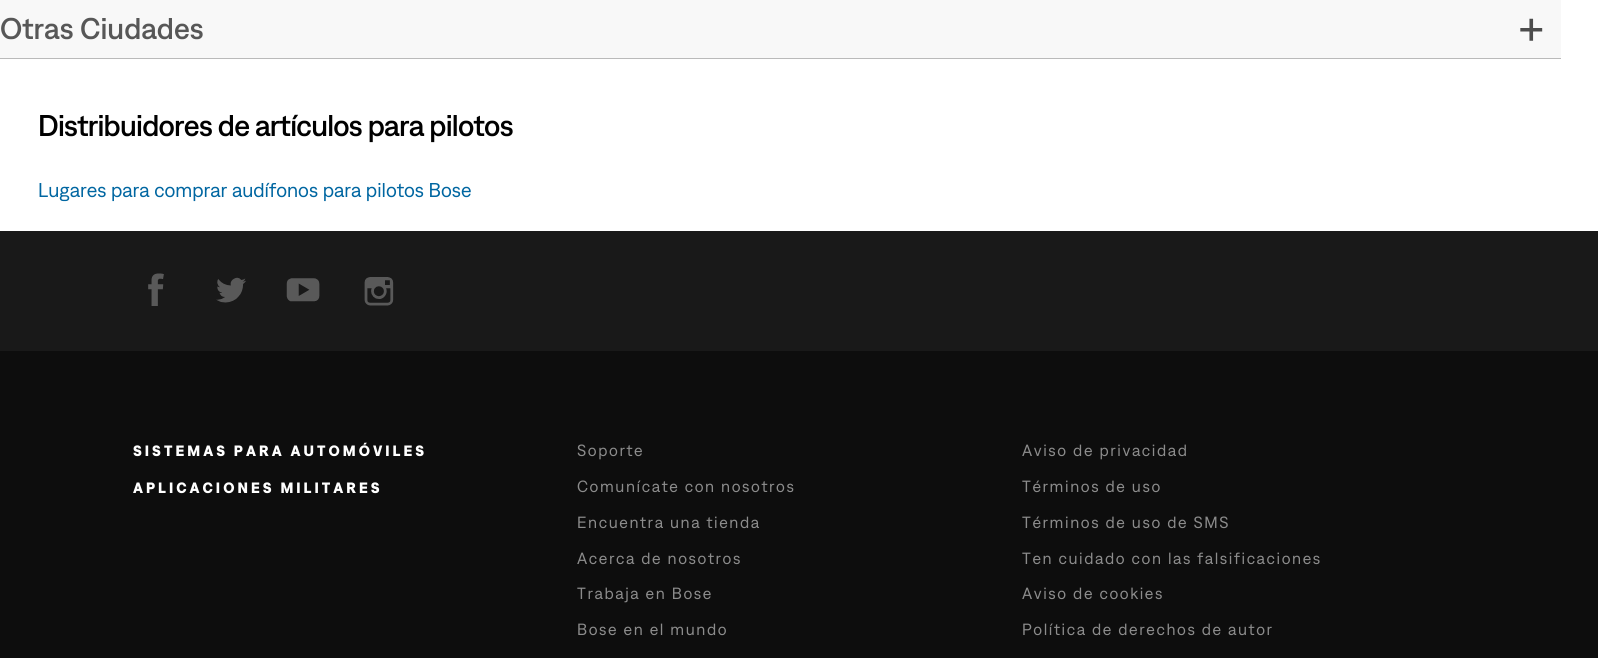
import math
import cairo

surface = cairo.ImageSurface(cairo.Format.RGB24, 1598, 658)
ctx = cairo.Context(surface)
options = cairo.FontOptions()
options.set_hint_metrics(cairo.HintMetrics.OFF)
options.set_hint_style(cairo.HintStyle.NONE)
ctx.set_font_options(options)
ctx.set_miter_limit(4)


def ink(r, g, b):
    ctx.set_source_rgb(r / 255, g / 255, b / 255)


def write(x, y, s, family, size, color, bold=False, italic=False):
    ctx.select_font_face(family, cairo.FontSlant.ITALIC if italic else cairo.FontSlant.NORMAL, cairo.FontWeight.BOLD if bold else cairo.FontWeight.NORMAL)
    ctx.set_font_size(size)
    ink(*color)
    ctx.move_to(x, y)
    ctx.show_text(s)


def write_spaced(x, y, s, letter, word):
    ctx.move_to(x, y)
    for ch in s:
        ctx.show_text(ch)
        ctx.rel_move_to(letter + word * (ch == ' '), 0)


def block(x, y, w, h, *color):
    ink(*color)
    ctx.rectangle(x, y, w, h)
    ctx.fill()


def paste(path, x, y, w, h):
    ctx.save()
    ctx.set_source_surface(cairo.ImageSurface.create_from_png(path), x, y)
    ctx.rectangle(x, y, w, h)
    ctx.fill()
    ctx.restore()


s1 = dict(family="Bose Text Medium", size=30, color=(87, 87, 87))
s2 = dict(family="Bose Text", size=20, color=(0, 102, 161))

ink(255, 255, 255)
ctx.paint()
block(0, 0, 1561, 58, 248, 248, 248)
block(0, 58, 1561, 1, 186, 186, 186)
write(0, 39, "Otras Ciudades", **s1)
paste("pic1.png", 1520, 18, 23, 23)
ink(0, 0, 0)
write_spaced(38, 136, "Distribuidores de artículos para pilotos", -0.75, 0)
write(38, 197, "Lugares para comprar audífonos para pilotos Bose", **s2)
block(0, 351, 1598, 307, 13, 13, 13)
block(0, 231, 1598, 120, 25, 25, 25)
paste("pic2.png", 148, 273, 16, 33)
paste("pic3.png", 216, 277, 30, 26)
paste("pic4.png", 286, 278, 34, 24)
paste("pic5.png", 364, 277, 30, 29)
ctx.select_font_face("Bose Text", cairo.FontSlant.NORMAL, cairo.FontWeight.BOLD)
ctx.set_font_size(15)
ink(255, 255, 255)
write_spaced(133, 456, "SISTEMAS PARA AUTOMÓVILES", 3, 0)
write_spaced(133, 493, "APLICACIONES MILITARES", 3, 0)
ctx.select_font_face("Bose Text")
ctx.set_font_size(16.25)
ink(140, 140, 140)
write_spaced(577, 456, "Soporte", 1.6, 0)
write_spaced(577, 492, "Comunícate con nosotros", 1.6, 0)
write_spaced(577, 528, "Encuentra una tienda", 1.6, 0)
write_spaced(577, 564, "Acerca de nosotros", 1.6, 0)
write_spaced(577, 599, "Trabaja en Bose", 1.6, 0)
write_spaced(577, 635, "Bose en el mundo", 1.6, 0)
write_spaced(1022, 456, "Aviso de privacidad", 1.6, 0)
write_spaced(1022, 492, "Términos de uso", 1.6, 0)
write_spaced(1022, 528, "Términos de uso de SMS", 1.6, 0)
write_spaced(1022, 564, "Ten cuidado con las falsificaciones", 1.6, 0)
write_spaced(1022, 599, "Aviso de cookies", 1.6, 0)
write_spaced(1022, 635, "Política de derechos de autor", 1.6, 0)
surface.write_to_png("screenshot.png")
